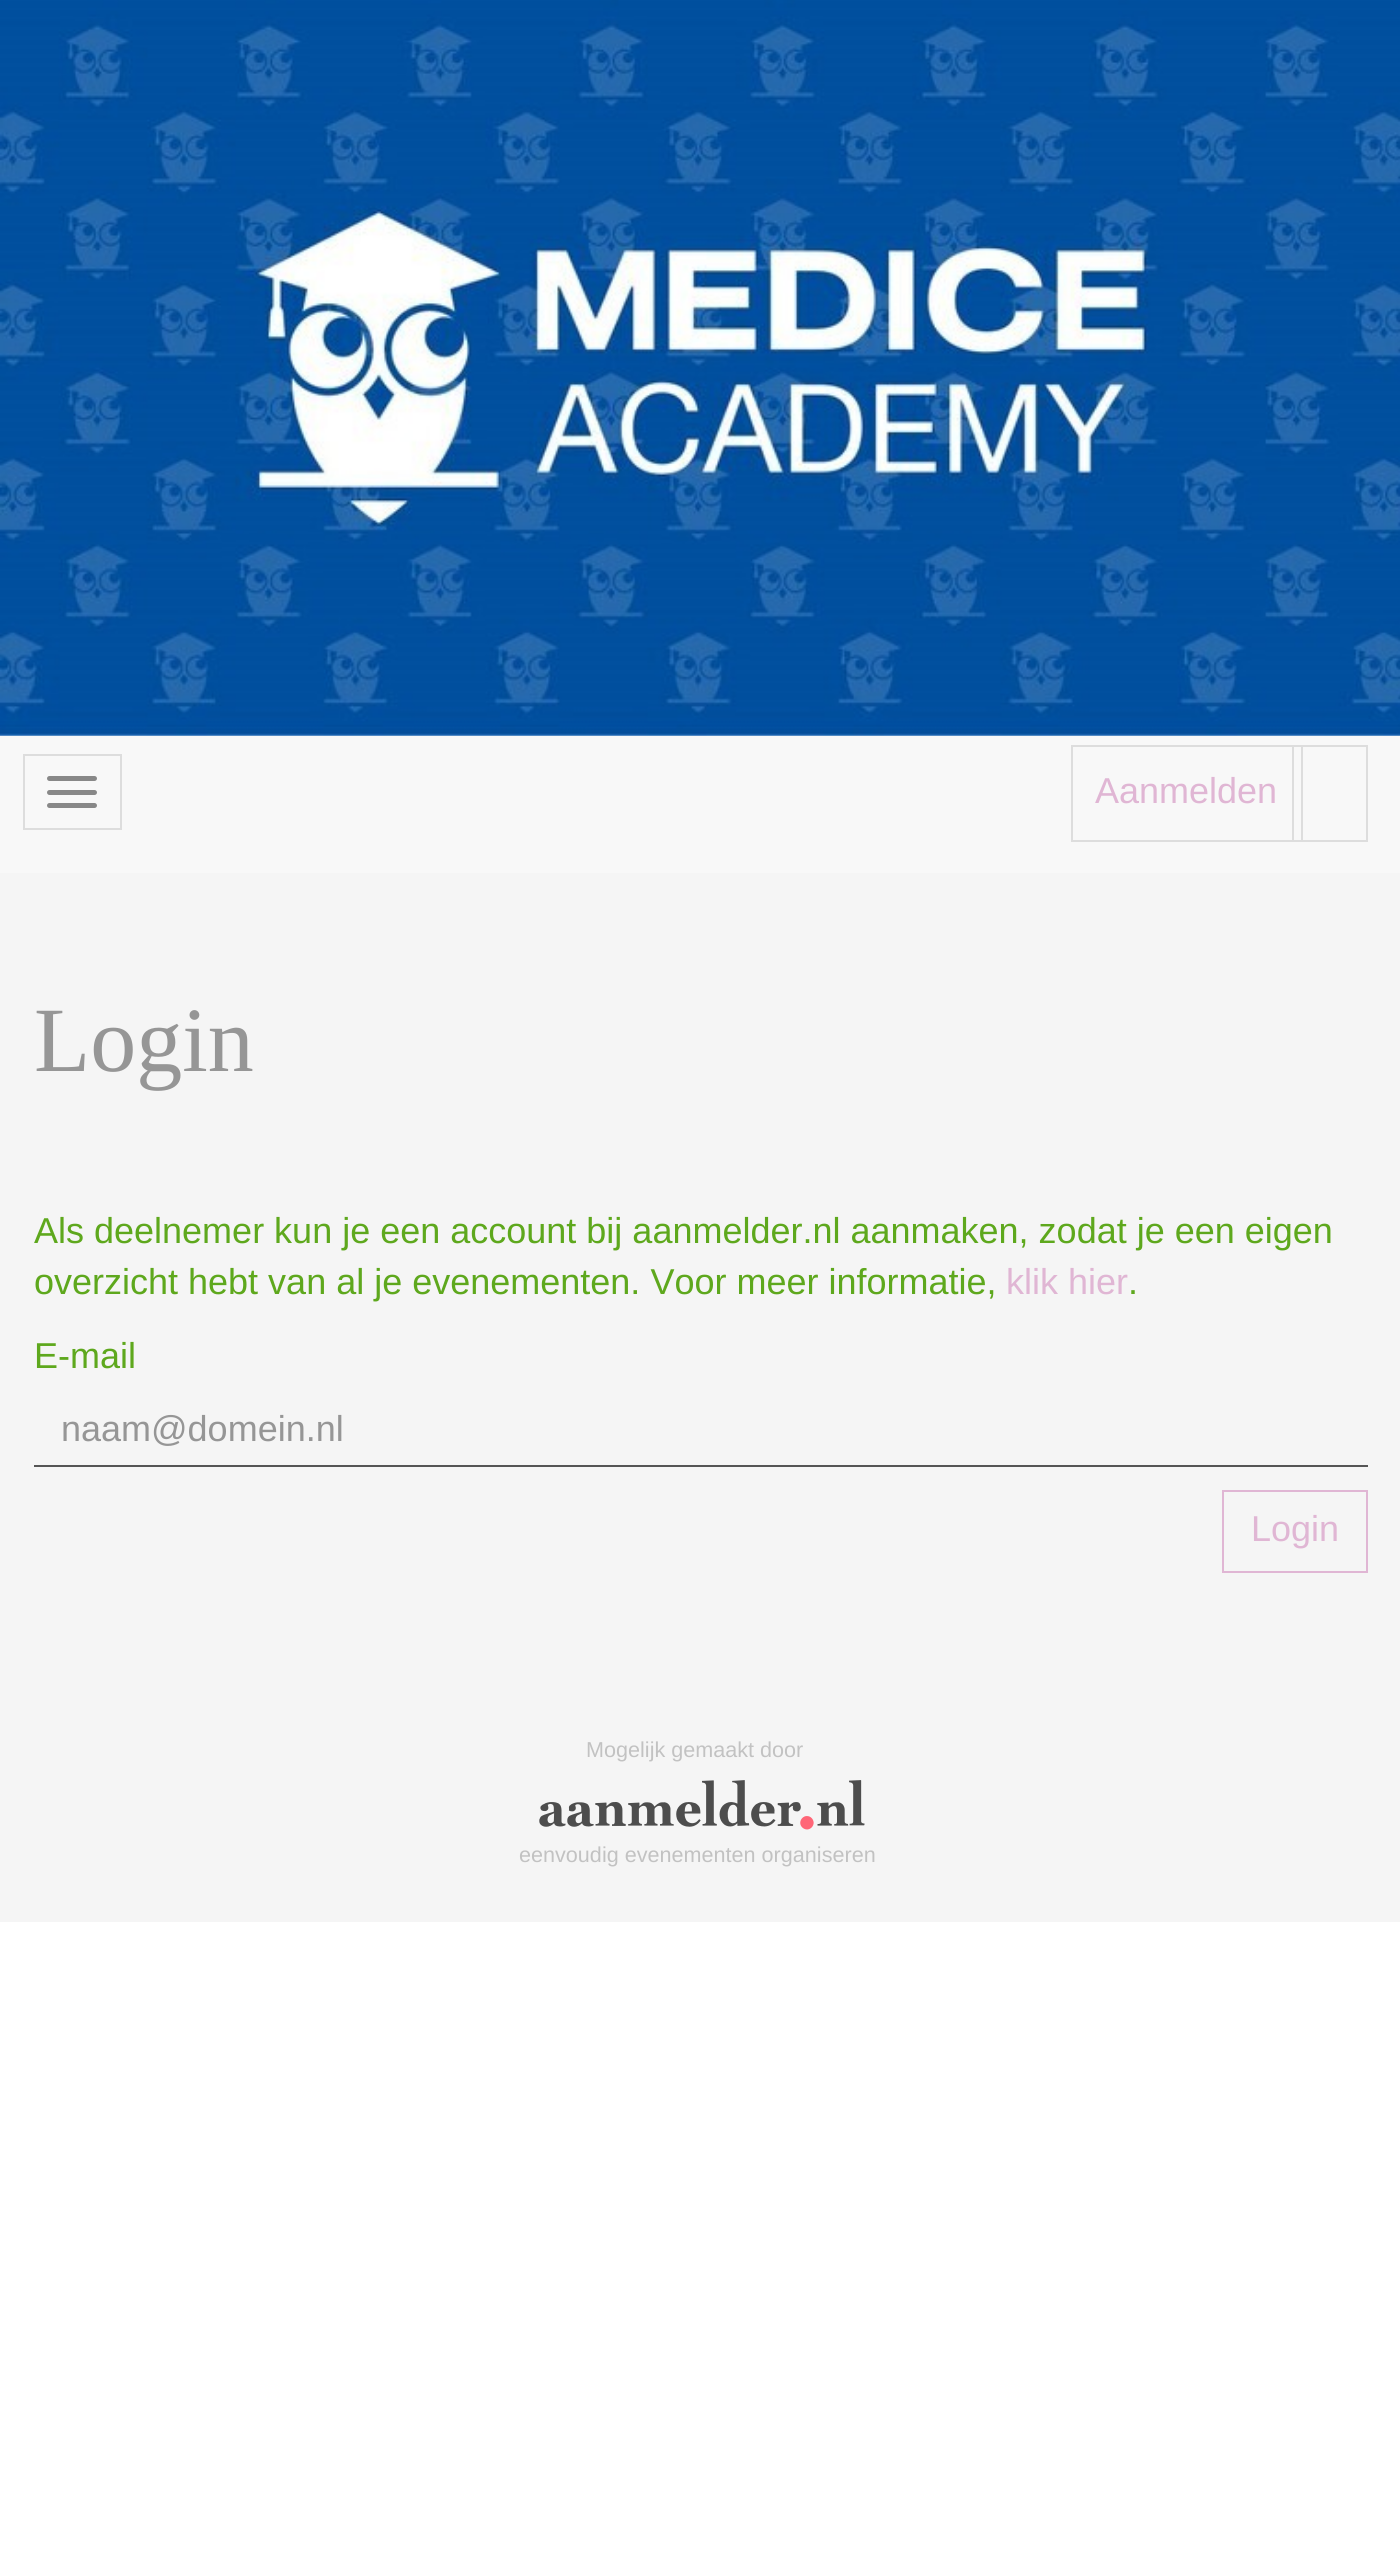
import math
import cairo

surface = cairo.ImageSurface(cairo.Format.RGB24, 1400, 2574)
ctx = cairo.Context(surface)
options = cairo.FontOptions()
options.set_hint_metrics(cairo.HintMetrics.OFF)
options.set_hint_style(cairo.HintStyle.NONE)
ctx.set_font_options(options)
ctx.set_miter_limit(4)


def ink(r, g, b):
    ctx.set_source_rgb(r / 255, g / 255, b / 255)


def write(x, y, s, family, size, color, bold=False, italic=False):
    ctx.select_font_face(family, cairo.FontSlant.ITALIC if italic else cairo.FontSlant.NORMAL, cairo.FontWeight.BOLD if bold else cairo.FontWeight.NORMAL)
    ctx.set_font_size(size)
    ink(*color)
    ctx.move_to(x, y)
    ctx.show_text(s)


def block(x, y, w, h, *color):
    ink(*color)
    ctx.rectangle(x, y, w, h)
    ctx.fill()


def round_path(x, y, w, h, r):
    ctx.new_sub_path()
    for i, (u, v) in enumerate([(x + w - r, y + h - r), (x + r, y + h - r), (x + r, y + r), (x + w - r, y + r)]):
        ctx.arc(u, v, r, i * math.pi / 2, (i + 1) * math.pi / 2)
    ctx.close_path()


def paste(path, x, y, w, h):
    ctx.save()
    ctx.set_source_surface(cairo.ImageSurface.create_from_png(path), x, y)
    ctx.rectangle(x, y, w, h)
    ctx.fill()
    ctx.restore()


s1 = dict(family="Liberation Sans", size=36, color=(224, 182, 212))
s2 = dict(family="Liberation Serif", size=92, color=(150, 150, 150))
s3 = dict(family="Liberation Sans", size=36, color=(94, 168, 29))
s4 = dict(family="Liberation Sans", size=36, color=(150, 150, 150))
s5 = dict(family="Liberation Sans", size=21.6, color=(194, 194, 194))

ink(255, 255, 255)
ctx.paint()
paste("pic1.png", 0, 0, 1400, 736)
block(0, 736, 1400, 137, 248, 248, 248)
ctx.rectangle(24, 755, 97, 74)
ink(221, 221, 221)
ctx.stroke()
ink(136, 136, 136)
round_path(47, 776, 50, 5, 2.5)
ctx.fill()
round_path(47, 790, 50, 5, 2.5)
ctx.fill()
round_path(47, 803, 50, 5, 2.5)
ctx.fill()
ctx.rectangle(1293, 746, 74, 95)
ink(221, 221, 221)
ctx.stroke()
ctx.rectangle(1072, 746, 230, 95)
ctx.stroke()
write(1095, 803, "Aanmelden", **s1)
block(0, 873, 1400, 1049, 245, 245, 245)
write(34, 1071, "Login", **s2)
write(34, 1243, "Als deelnemer kun je een account bij aanmelder.nl aanmaken, zodat je een eigen", **s3)
write(34, 1294, "overzicht hebt van al je evenementen. Voor meer informatie,", **s3)
write(1006, 1294, "klik hier", **s1)
write(1128, 1294, ".", **s3)
write(34, 1368, "E-mail", **s3)
block(34, 1465, 1334, 2, 85, 85, 85)
write(61, 1441, "naam@domein.nl", **s4)
ctx.rectangle(1223, 1491, 144, 81)
ink(224, 182, 212)
ctx.stroke()
write(1251, 1541, "Login", **s1)
write(586, 1757, "Mogelijk gemaakt door", **s5)
paste("pic2.png", 539, 1780, 326, 50)
write(519, 1862, "eenvoudig evenementen organiseren", **s5)
surface.write_to_png("screenshot.png")
